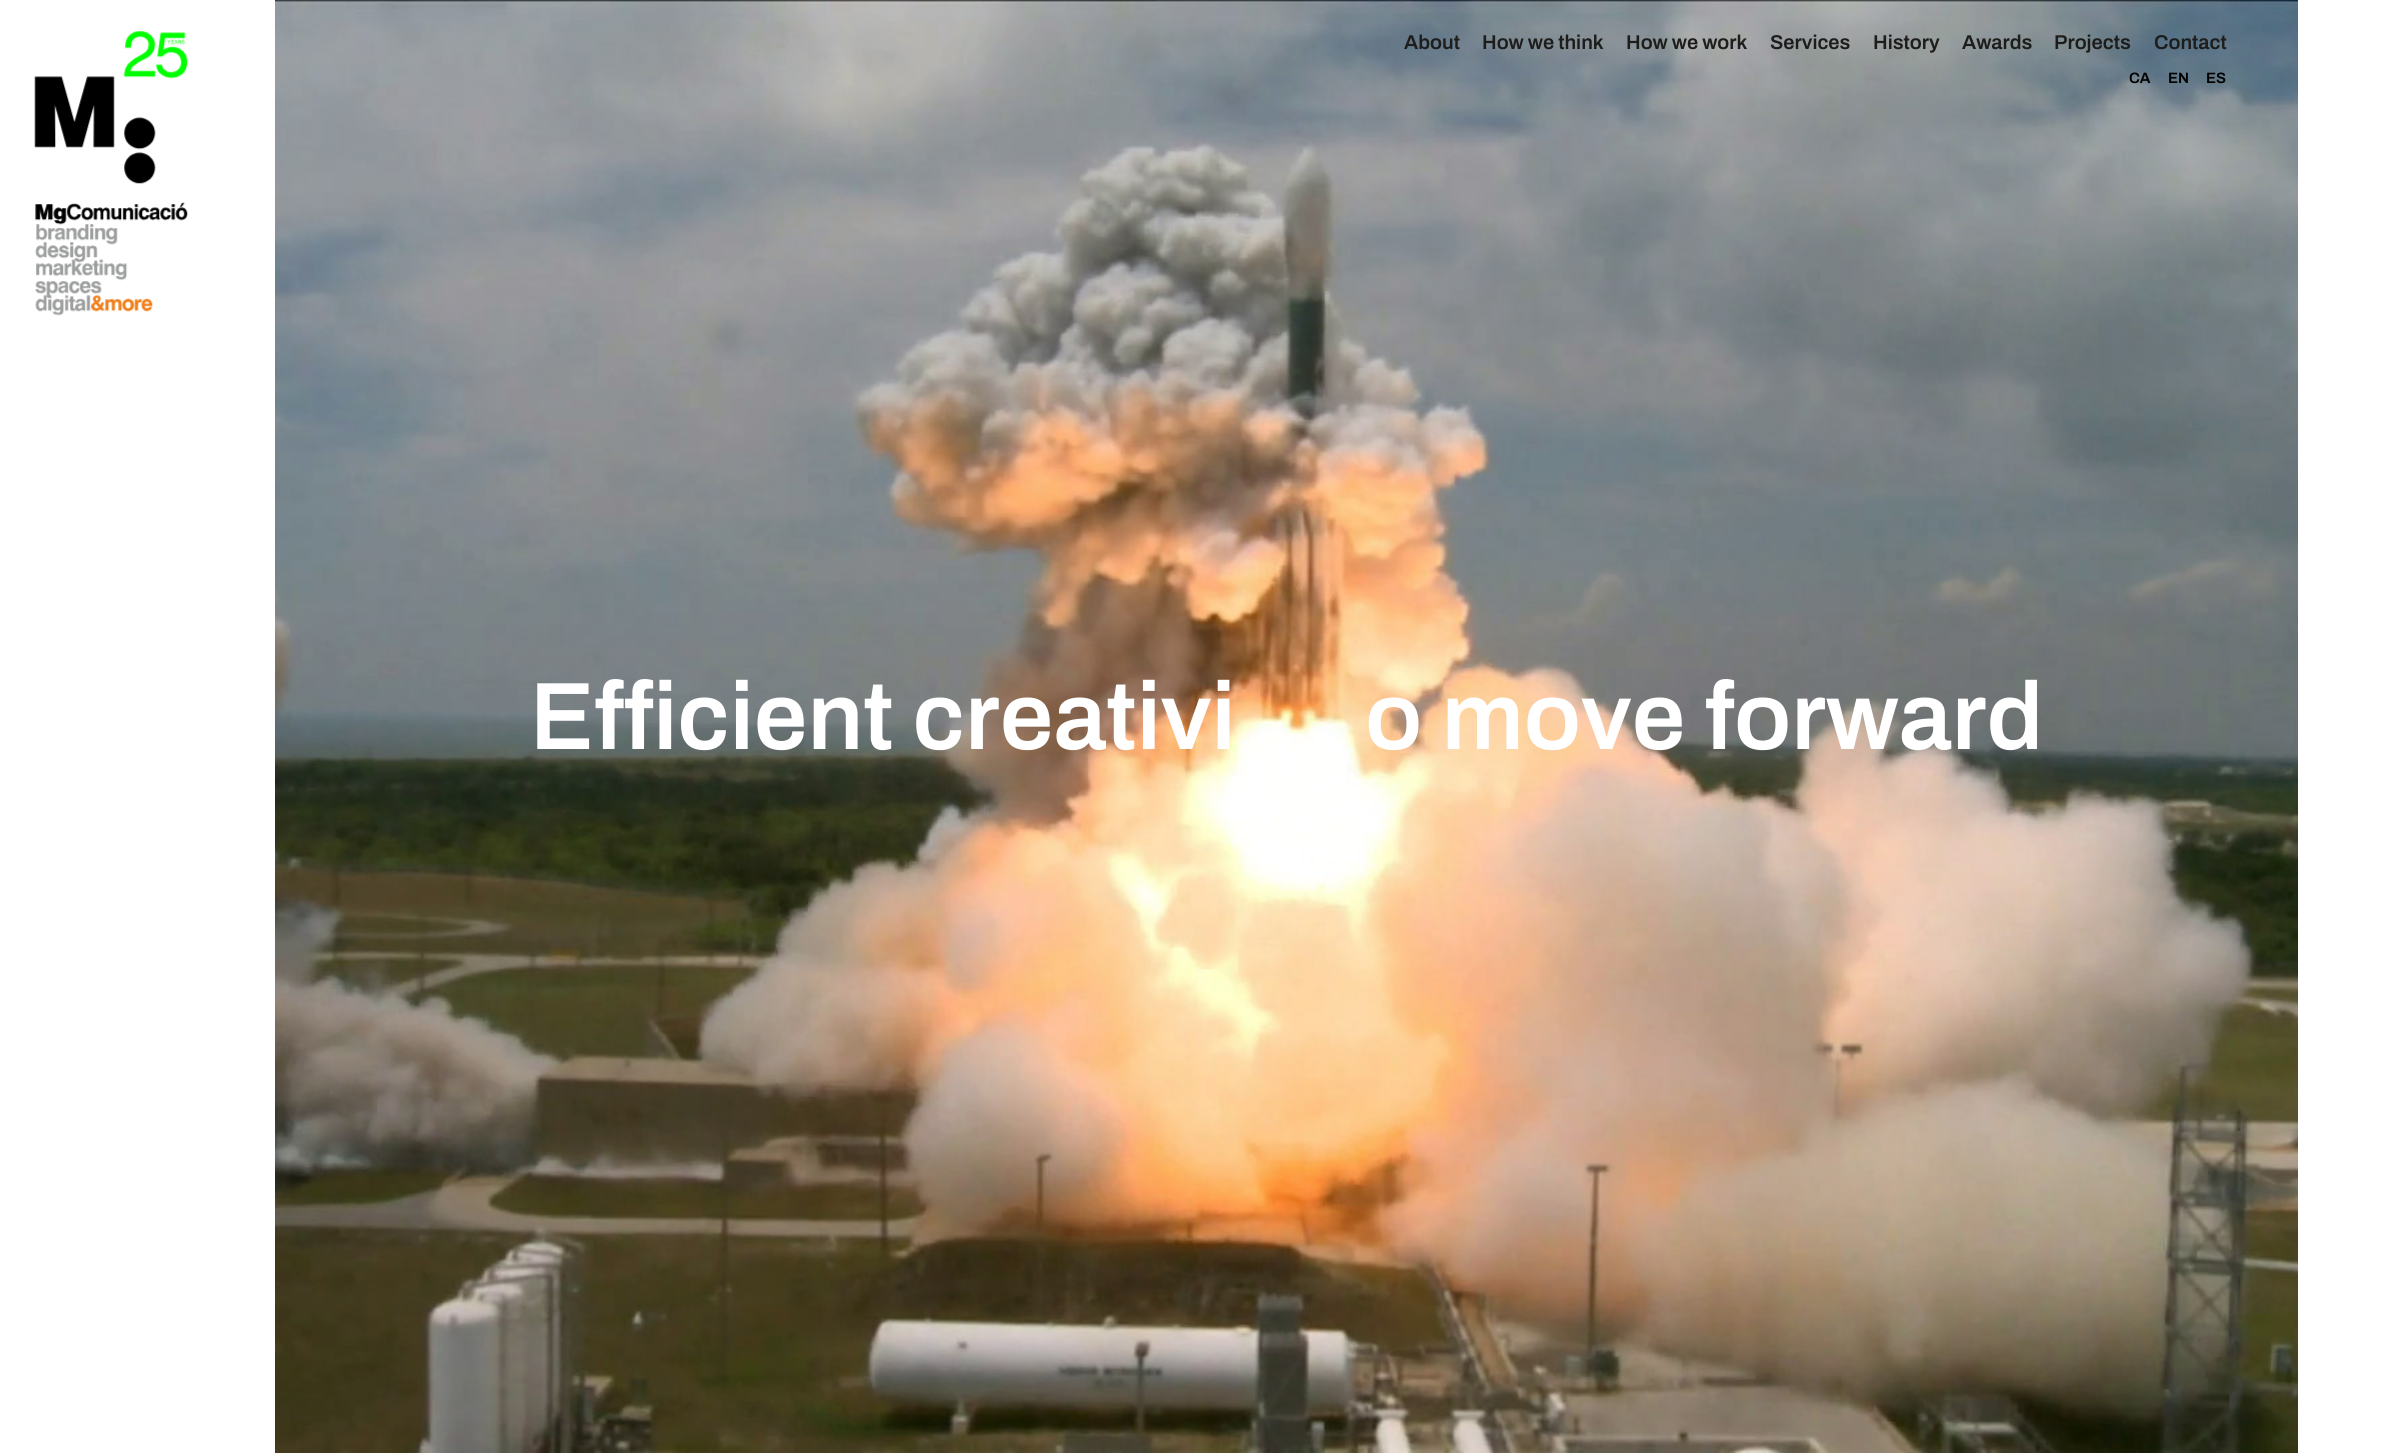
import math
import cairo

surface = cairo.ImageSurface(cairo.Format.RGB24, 2391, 1453)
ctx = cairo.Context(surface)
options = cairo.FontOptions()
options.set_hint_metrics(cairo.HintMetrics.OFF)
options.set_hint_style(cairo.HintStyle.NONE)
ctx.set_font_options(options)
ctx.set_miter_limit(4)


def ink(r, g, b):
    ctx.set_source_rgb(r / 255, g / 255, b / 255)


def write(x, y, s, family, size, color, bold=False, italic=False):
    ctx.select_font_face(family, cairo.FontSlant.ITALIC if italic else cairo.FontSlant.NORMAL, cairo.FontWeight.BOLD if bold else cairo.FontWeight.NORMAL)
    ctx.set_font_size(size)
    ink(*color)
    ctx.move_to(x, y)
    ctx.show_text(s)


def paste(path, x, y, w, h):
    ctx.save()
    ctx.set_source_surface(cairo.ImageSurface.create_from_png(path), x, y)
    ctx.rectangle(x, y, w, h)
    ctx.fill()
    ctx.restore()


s1 = dict(family="Archivo SemiBold", size=20, color=(29, 29, 27))
s2 = dict(family="Archivo SemiBold", size=15, color=(0, 0, 0))
s3 = dict(family="Archivo SemiBold", size=95.75, color=(255, 255, 255))

ink(255, 255, 255)
ctx.paint()
paste("pic2.png", 275, 0, 2023, 1453)
write(1404, 49, "About", **s1)
write(1482, 49, "How we think", **s1)
write(1626, 49, "How we work", **s1)
write(1770, 49, "Services", **s1)
write(1873, 49, "History", **s1)
write(1962, 49, "Awards", **s1)
write(2054, 49, "Projects", **s1)
write(2154, 49, "Contact", **s1)
write(2129, 83, "CA", **s2)
write(2168, 83, "EN", **s2)
write(2206, 83, "ES", **s2)
paste("pic1.png", 34, 31, 154, 285)
write(530, 749, "Efficient creativi", **s3)
write(1365, 749, "o move forward", **s3)
surface.write_to_png("screenshot.png")
